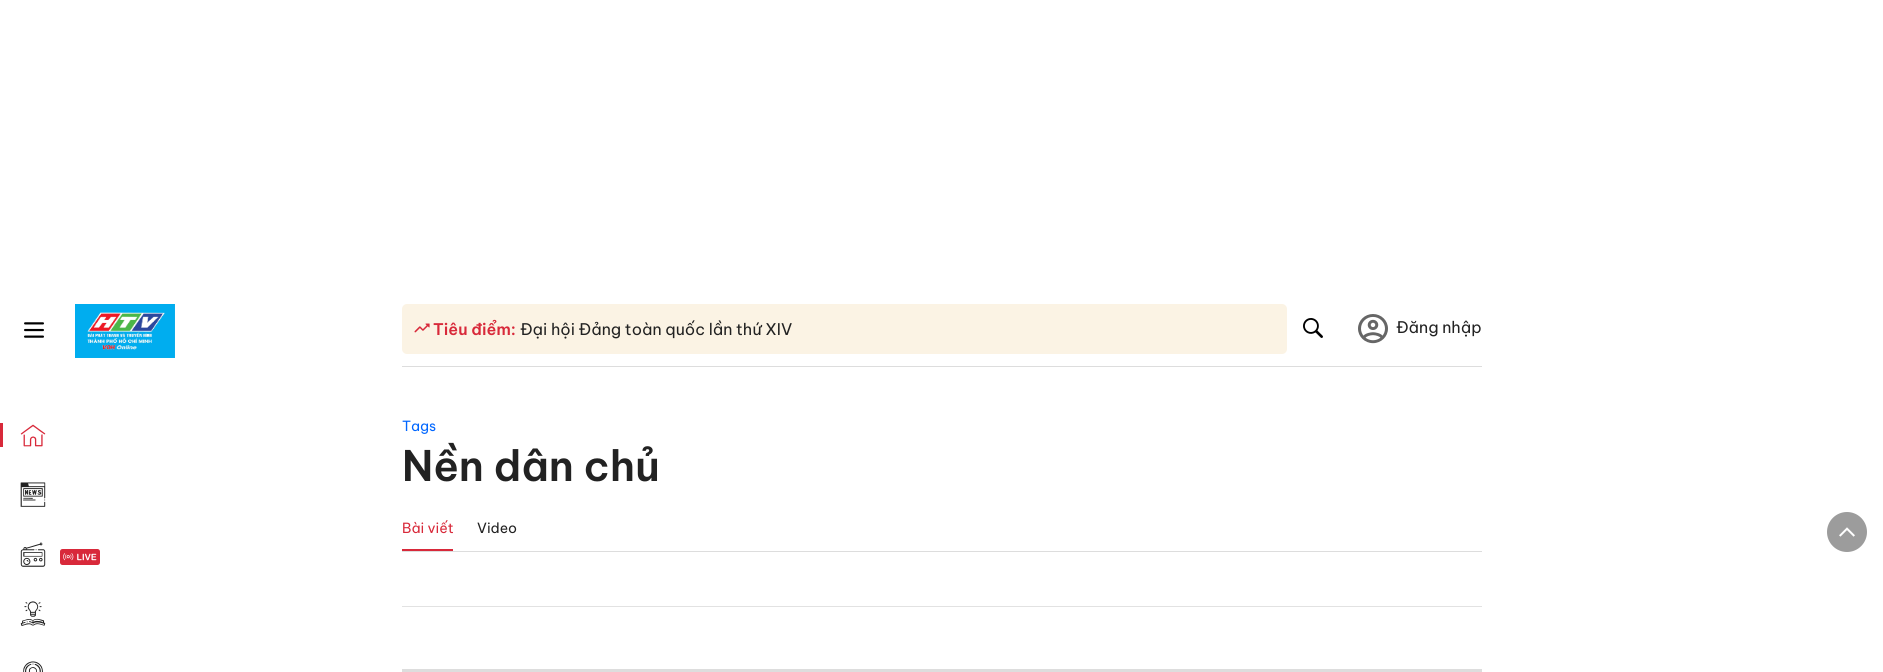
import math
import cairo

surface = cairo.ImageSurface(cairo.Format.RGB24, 1883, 672)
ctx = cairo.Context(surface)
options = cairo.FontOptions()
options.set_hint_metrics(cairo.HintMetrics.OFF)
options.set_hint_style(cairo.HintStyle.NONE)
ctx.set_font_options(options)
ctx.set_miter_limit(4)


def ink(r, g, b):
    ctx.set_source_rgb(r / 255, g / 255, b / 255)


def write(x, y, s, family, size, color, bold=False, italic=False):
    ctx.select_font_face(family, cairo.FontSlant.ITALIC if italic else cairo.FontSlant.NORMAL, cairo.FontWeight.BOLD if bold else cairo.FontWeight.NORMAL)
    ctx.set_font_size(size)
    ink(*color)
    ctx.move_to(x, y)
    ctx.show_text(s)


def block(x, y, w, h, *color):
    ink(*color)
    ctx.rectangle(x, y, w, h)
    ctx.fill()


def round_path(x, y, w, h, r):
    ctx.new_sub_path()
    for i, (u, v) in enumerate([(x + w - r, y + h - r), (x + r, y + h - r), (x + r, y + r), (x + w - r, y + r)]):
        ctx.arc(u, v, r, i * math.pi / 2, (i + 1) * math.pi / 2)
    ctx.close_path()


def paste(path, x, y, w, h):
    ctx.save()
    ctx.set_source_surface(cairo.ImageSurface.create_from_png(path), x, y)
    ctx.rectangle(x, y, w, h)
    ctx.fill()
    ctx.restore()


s1 = dict(family="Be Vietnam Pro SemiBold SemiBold", size=16, color=(216, 41, 58))
s2 = dict(family="Be Vietnam Pro", size=16, color=(34, 34, 34))
s3 = dict(family="Be Vietnam Pro", size=14, color=(0, 102, 255))
s4 = dict(family="Be Vietnam Pro SemiBold SemiBold", size=42, color=(34, 34, 34))
s5 = dict(family="Be Vietnam Pro", size=14, color=(216, 41, 58))
s6 = dict(family="Be Vietnam Pro", size=14, color=(34, 34, 34))

ink(255, 255, 255)
ctx.paint()
paste("pic1.png", 24, 322, 20, 16)
paste("pic2.png", 75, 304, 100, 54)
block(0, 423, 3, 24, 216, 41, 58)
paste("pic3.png", 20, 424, 26, 23)
paste("pic4.png", 20, 482, 26, 25)
paste("pic5.png", 20, 542, 26, 25)
paste("pic6.png", 60, 549, 40, 16)
paste("pic7.png", 20, 601, 26, 25)
paste("pic8.png", 23, 661, 20, 11)
block(402, 366, 1080, 1, 221, 221, 221)
ink(251, 243, 228)
round_path(402, 304, 885, 50, 5)
ctx.fill()
paste("pic9.png", 414, 323, 16, 10)
write(433, 335, "Tiêu điểm:", **s1)
write(520, 335, "Đại hội Đảng toàn quốc lần thứ XIV", **s2)
paste("pic10.png", 1303, 318, 20, 20)
paste("pic11.png", 1358, 314, 30, 30)
write(1396, 333, "Đăng nhập", **s2)
write(402, 431, "Tags", **s3)
write(402, 481, "Nền dân chủ", **s4)
block(402, 551, 1080, 1, 221, 221, 221)
block(402, 549, 51, 2, 216, 41, 58)
write(402, 533, "Bài viết", **s5)
write(477, 533, "Video", **s6)
block(402, 606, 1080, 1, 226, 226, 226)
ink(156, 156, 156)
ctx.new_path()
ctx.arc(1847, 532, 20, 0, 2 * math.pi)
ctx.fill()
paste("pic12.png", 1839, 527, 16, 10)
block(402, 669, 1080, 3, 221, 221, 221)
surface.write_to_png("screenshot.png")
